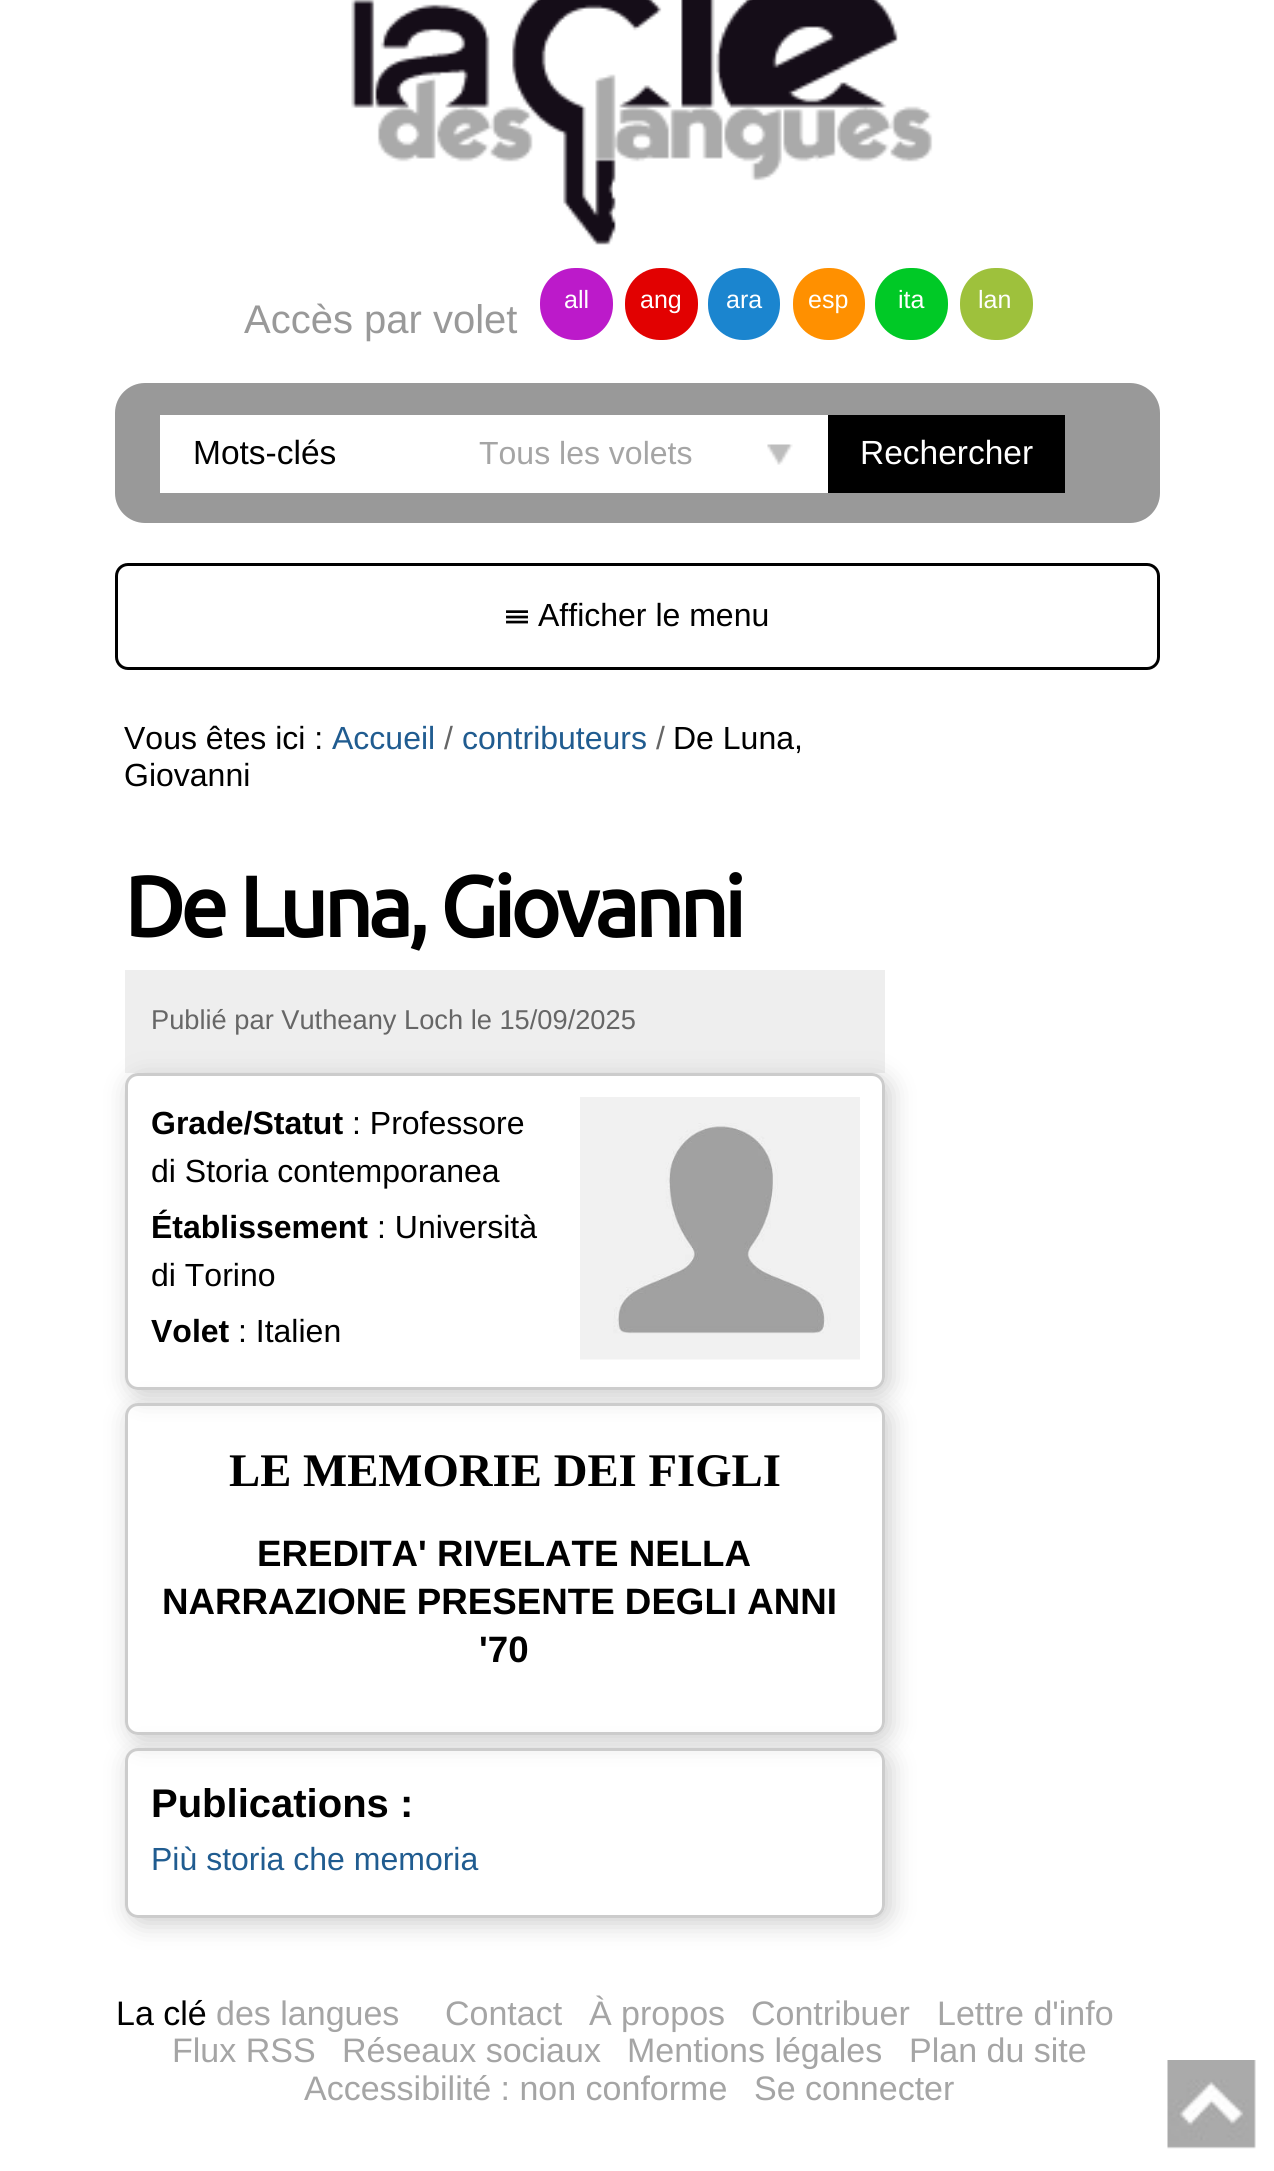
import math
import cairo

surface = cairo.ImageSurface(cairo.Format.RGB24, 1274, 2171)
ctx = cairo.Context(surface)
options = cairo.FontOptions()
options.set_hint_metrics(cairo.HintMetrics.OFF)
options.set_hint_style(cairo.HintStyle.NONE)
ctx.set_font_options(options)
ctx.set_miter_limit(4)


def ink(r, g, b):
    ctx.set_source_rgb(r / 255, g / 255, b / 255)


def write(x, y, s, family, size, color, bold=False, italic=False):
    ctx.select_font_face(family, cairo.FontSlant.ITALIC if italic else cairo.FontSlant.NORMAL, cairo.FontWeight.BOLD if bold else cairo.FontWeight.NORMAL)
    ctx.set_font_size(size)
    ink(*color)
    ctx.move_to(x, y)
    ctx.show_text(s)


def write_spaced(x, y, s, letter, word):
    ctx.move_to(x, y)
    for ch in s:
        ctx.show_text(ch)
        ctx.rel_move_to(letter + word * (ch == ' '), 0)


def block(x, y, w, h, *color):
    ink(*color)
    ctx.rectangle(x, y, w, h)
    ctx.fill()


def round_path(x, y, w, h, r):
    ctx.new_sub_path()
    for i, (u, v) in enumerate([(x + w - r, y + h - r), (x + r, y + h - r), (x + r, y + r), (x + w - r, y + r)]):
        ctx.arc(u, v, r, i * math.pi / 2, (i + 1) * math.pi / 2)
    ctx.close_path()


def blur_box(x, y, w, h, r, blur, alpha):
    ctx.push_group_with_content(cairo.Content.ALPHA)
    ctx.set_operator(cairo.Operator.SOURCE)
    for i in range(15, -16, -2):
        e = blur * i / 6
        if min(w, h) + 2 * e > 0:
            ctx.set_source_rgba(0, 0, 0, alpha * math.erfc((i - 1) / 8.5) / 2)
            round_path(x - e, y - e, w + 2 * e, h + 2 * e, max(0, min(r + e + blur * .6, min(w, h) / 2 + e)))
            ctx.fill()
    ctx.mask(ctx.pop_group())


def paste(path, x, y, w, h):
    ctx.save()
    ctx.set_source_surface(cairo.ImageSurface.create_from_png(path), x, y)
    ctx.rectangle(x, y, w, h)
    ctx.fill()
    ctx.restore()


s1 = dict(family="Liberation Sans", size=40, color=(153, 153, 153))
s2 = dict(family="Liberation Sans", size=25, color=(255, 255, 255))
s3 = dict(family="Liberation Sans", size=33.5, color=(0, 0, 0))
s4 = dict(family="Liberation Sans", size=32, color=(165, 165, 165))
s5 = dict(family="Liberation Sans", size=33.5, color=(255, 255, 255))
s6 = dict(family="FreeSans", size=32, color=(0, 0, 0))
s7 = dict(family="Liberation Sans", size=32, color=(0, 0, 0))
s8 = dict(family="Liberation Sans", size=32, color=(32, 92, 144))
s9 = dict(family="Liberation Sans", size=32, color=(102, 102, 102))
s10 = dict(family="Liberation Sans", size=27.25, color=(102, 102, 102))
s11 = dict(family="Liberation Sans", size=32, color=(0, 0, 0), bold=True)
s12 = dict(family="Liberation Serif", size=46.75, color=(0, 0, 0), bold=True)
s13 = dict(family="Liberation Sans", size=36.7, color=(0, 0, 0), bold=True)
s14 = dict(family="Liberation Sans", size=40, color=(0, 0, 0), bold=True)
s15 = dict(family="Liberation Sans", size=34, color=(0, 0, 0))
s16 = dict(family="Liberation Sans", size=34, color=(165, 165, 165))

ink(255, 255, 255)
ctx.paint()
paste("pic1.png", 351, 0, 582, 245)
write(244, 333, "Accès par volet", **s1)
ink(188, 26, 202)
round_path(540, 268, 73, 72, 35)
ctx.fill()
write(564, 308, "all", **s2)
ink(226, 1, 1)
round_path(625, 268, 73, 72, 35)
ctx.fill()
write(640, 308, "ang", **s2)
ink(27, 133, 207)
round_path(708, 268, 72, 72, 35)
ctx.fill()
write(726, 308, "ara", **s2)
ink(255, 144, 0)
round_path(793, 268, 72, 72, 35)
ctx.fill()
write(808, 308, "esp", **s2)
ink(0, 201, 38)
round_path(875, 268, 73, 72, 35)
ctx.fill()
write(898, 308, "ita", **s2)
ink(158, 193, 60)
round_path(960, 268, 73, 72, 35)
ctx.fill()
write(978, 308, "lan", **s2)
ink(153, 153, 153)
round_path(115, 383, 1045, 140, 30)
ctx.fill()
block(160, 415, 668, 78, 255, 255, 255)
write(193, 464, "Mots-clés", **s3)
paste("pic2.png", 767, 444, 26, 21)
write(479, 464, "Tous les volets", **s4)
block(828, 415, 237, 78, 0, 0, 0)
write(860, 464, "Rechercher", **s5)
round_path(116.5, 564.5, 1042, 104, 11.5)
ink(0, 0, 0)
ctx.set_line_width(3)
ctx.stroke()
write(505, 626, "☰", **s6)
write(538, 626, "Afficher le menu", **s7)
write(124, 749, "Vous êtes ici :", **s7)
write(332, 749, "Accueil", **s8)
write(444, 749, "/", **s9)
write(462, 749, "contributeurs", **s8)
write(656, 749, "/", **s9)
write(673, 749, "De Luna,", **s7)
write(124, 786, "Giovanni", **s7)
ctx.select_font_face("Ubuntu", cairo.FontSlant.NORMAL, cairo.FontWeight.BOLD)
ctx.set_font_size(85)
write_spaced(124, 937, "De Luna, Giovanni", -4.25, 0)
block(125, 970, 760, 103, 238, 238, 238)
write(151, 1029, "Publié par Vutheany Loch le 15/09/2025", **s10)
ctx.save()
ctx.set_fill_rule(cairo.FillRule.EVEN_ODD)
ctx.new_path()
ctx.move_to(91, 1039)
ctx.line_to(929, 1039)
ctx.line_to(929, 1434)
ctx.line_to(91, 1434)
ctx.close_path()
ctx.move_to(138, 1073)
ctx.line_to(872, 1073)
ctx.curve_to(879, 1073, 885, 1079, 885, 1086)
ctx.line_to(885, 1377)
ctx.curve_to(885, 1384, 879, 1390, 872, 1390)
ctx.line_to(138, 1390)
ctx.curve_to(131, 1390, 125, 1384, 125, 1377)
ctx.line_to(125, 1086)
ctx.curve_to(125, 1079, 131, 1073, 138, 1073)
ctx.close_path()
ctx.clip()
ink(204, 204, 204)
blur_box(130, 1078, 760, 317, 13, 12.5, 1)
ctx.restore()
round_path(126.5, 1074.5, 757, 314, 11.5)
ink(204, 204, 204)
ctx.stroke()
write(151, 1134, "Grade/Statut", **s11)
write(352, 1134, ": Professore", **s7)
write(151, 1182, "di Storia contemporanea", **s7)
write(151, 1238, "Établissement", **s11)
write(377, 1238, ": Università", **s7)
write(151, 1286, "di Torino", **s7)
write(151, 1342, "Volet", **s11)
write(238, 1342, ": Italien", **s7)
paste("pic3.png", 580, 1097, 280, 263)
ctx.save()
ctx.set_fill_rule(cairo.FillRule.EVEN_ODD)
ctx.new_path()
ctx.move_to(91, 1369)
ctx.line_to(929, 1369)
ctx.line_to(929, 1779)
ctx.line_to(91, 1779)
ctx.close_path()
ctx.move_to(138, 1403)
ctx.line_to(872, 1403)
ctx.curve_to(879, 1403, 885, 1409, 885, 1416)
ctx.line_to(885, 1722)
ctx.curve_to(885, 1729, 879, 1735, 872, 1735)
ctx.line_to(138, 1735)
ctx.curve_to(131, 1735, 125, 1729, 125, 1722)
ctx.line_to(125, 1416)
ctx.curve_to(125, 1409, 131, 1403, 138, 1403)
ctx.close_path()
ctx.clip()
ink(204, 204, 204)
blur_box(130, 1408, 760, 332, 13, 12.5, 1)
ctx.restore()
round_path(126.5, 1404.5, 757, 329, 11.5)
ink(204, 204, 204)
ctx.stroke()
write(229, 1486, "LE MEMORIE DEI FIGLI", **s12)
write(257, 1566, "EREDITA' RIVELATE NELLA", **s13)
write(162, 1614, "NARRAZIONE PRESENTE DEGLI ANNI", **s13)
write(479, 1662, "'70", **s13)
ctx.save()
ctx.set_fill_rule(cairo.FillRule.EVEN_ODD)
ctx.new_path()
ctx.move_to(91, 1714)
ctx.line_to(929, 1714)
ctx.line_to(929, 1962)
ctx.line_to(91, 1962)
ctx.close_path()
ctx.move_to(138, 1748)
ctx.line_to(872, 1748)
ctx.curve_to(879, 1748, 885, 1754, 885, 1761)
ctx.line_to(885, 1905)
ctx.curve_to(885, 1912, 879, 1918, 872, 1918)
ctx.line_to(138, 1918)
ctx.curve_to(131, 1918, 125, 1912, 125, 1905)
ctx.line_to(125, 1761)
ctx.curve_to(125, 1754, 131, 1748, 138, 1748)
ctx.close_path()
ctx.clip()
ink(204, 204, 204)
blur_box(130, 1753, 760, 170, 13, 12.5, 1)
ctx.restore()
round_path(126.5, 1749.5, 757, 167, 11.5)
ink(204, 204, 204)
ctx.stroke()
write(151, 1817, "Publications :", **s14)
write(151, 1870, "Più storia che memoria", **s8)
write(116, 2025, "La clé", **s15)
write(216, 2025, "des langues", **s16)
write(445, 2025, "Contact", **s16)
write(589, 2025, "À propos", **s16)
write(751, 2025, "Contribuer", **s16)
write(937, 2025, "Lettre d'info", **s16)
write(172, 2062, "Flux RSS", **s16)
write(342, 2062, "Réseaux sociaux", **s16)
write(627, 2062, "Mentions légales", **s16)
write(909, 2062, "Plan du site", **s16)
write(304, 2100, "Accessibilité : non conforme", **s16)
write(754, 2100, "Se connecter", **s16)
paste("pic4.png", 1167, 2060, 89, 89)
surface.write_to_png("screenshot.png")
